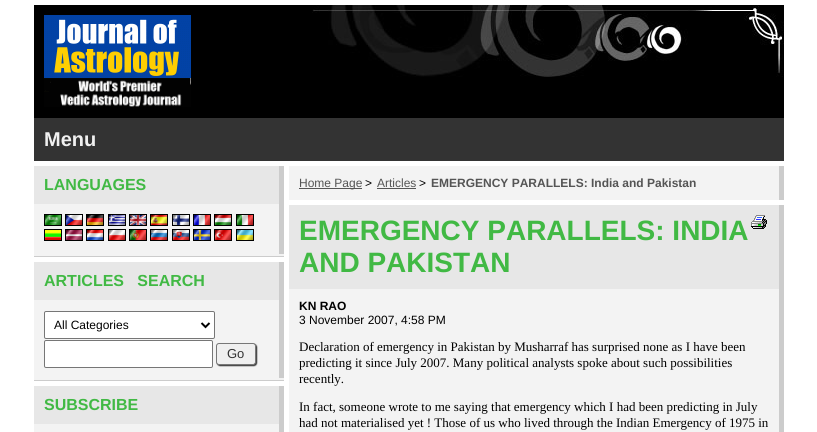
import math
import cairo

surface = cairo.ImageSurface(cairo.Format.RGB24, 817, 432)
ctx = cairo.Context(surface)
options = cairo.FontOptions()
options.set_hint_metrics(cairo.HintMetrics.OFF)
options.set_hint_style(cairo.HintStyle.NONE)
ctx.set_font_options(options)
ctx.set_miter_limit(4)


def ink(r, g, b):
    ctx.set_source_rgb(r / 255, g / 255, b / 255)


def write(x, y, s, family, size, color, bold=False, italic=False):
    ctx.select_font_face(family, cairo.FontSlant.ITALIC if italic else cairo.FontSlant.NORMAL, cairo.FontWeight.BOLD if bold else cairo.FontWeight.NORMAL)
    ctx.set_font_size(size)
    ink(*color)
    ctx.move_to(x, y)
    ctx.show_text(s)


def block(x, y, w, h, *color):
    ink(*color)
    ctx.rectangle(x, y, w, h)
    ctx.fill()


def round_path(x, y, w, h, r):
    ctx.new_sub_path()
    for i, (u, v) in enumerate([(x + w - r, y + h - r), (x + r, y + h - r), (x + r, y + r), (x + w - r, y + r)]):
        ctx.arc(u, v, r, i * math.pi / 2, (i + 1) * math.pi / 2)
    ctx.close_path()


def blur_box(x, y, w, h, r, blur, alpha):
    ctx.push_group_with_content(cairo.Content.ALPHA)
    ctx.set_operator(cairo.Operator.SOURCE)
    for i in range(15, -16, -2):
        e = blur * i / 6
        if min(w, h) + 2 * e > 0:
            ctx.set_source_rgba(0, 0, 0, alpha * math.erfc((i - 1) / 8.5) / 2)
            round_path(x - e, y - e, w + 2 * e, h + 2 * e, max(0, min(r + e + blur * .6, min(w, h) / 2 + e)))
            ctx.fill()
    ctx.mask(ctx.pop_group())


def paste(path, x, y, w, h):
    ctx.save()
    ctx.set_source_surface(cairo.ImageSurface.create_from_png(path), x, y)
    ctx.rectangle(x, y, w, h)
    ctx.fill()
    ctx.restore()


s1 = dict(family="Liberation Sans", size=20, color=(240, 240, 240), bold=True)
s2 = dict(family="Liberation Sans", size=16, color=(65, 185, 68), bold=True)
s3 = dict(family="Liberation Sans", size=12, color=(0, 0, 0))
s4 = dict(family="Liberation Sans", size=13, color=(51, 51, 51))
s5 = dict(family="Liberation Sans", size=12, color=(85, 85, 85))
s6 = dict(family="Liberation Sans", size=12, color=(85, 85, 85), bold=True)
s7 = dict(family="Liberation Sans", size=28, color=(65, 185, 68), bold=True)
s8 = dict(family="Liberation Sans", size=12, color=(0, 0, 0), bold=True)
s9 = dict(family="Liberation Serif", size=13, color=(0, 0, 0))

ink(255, 255, 255)
ctx.paint()
block(34, 5, 750, 113, 0, 0, 0)
paste("pic1.png", 312, 5, 472, 72)
paste("pic2.png", 44, 15, 147, 92)
block(34, 118, 750, 43, 51, 51, 51)
write(44, 146, "Menu", **s1)
block(34, 166, 245, 38, 231, 231, 231)
block(279, 166, 5, 88, 204, 204, 204)
write(44, 190, "LANGUAGES", **s2)
block(34, 256, 250, 1, 204, 204, 204)
block(34, 254, 250, 2, 243, 243, 243)
block(34, 204, 245, 50, 243, 243, 243)
paste("pic3.png", 44, 214, 18, 12)
paste("pic4.png", 65, 214, 18, 12)
paste("pic5.png", 86, 214, 18, 12)
paste("pic6.png", 108, 214, 18, 12)
paste("pic7.png", 129, 214, 18, 12)
paste("pic8.png", 150, 214, 18, 12)
paste("pic9.png", 172, 214, 18, 12)
paste("pic10.png", 193, 214, 18, 12)
paste("pic11.png", 214, 214, 18, 12)
paste("pic12.png", 236, 214, 18, 12)
paste("pic13.png", 44, 229, 18, 12)
paste("pic14.png", 65, 229, 18, 12)
paste("pic15.png", 86, 229, 18, 12)
paste("pic16.png", 108, 229, 18, 12)
paste("pic17.png", 129, 229, 18, 12)
paste("pic18.png", 150, 229, 18, 12)
paste("pic19.png", 172, 229, 18, 12)
paste("pic20.png", 193, 229, 18, 12)
paste("pic21.png", 214, 229, 18, 12)
paste("pic22.png", 236, 229, 18, 12)
block(34, 262, 245, 38, 231, 231, 231)
block(279, 262, 5, 116, 204, 204, 204)
write(44, 286, "ARTICLES   SEARCH", **s2)
block(34, 380, 250, 1, 204, 204, 204)
block(34, 378, 250, 2, 243, 243, 243)
block(34, 300, 245, 78, 243, 243, 243)
ink(255, 255, 255)
round_path(44.5, 311.5, 170, 27, 1.5)
ctx.fill_preserve()
ink(118, 118, 118)
ctx.set_line_width(1)
ctx.stroke()
ctx.new_path()
ctx.move_to(201.5, 323)
ctx.line_to(205.5, 327)
ctx.line_to(209.5, 323)
ink(0, 0, 0)
ctx.set_line_width(2)
ctx.stroke()
write(54, 329, "All Categories", **s3)
ink(255, 255, 255)
round_path(44.5, 340.5, 168, 27, 1.5)
ctx.fill_preserve()
ink(118, 118, 118)
ctx.set_line_width(1)
ctx.stroke()
ink(51, 51, 51)
blur_box(217, 344, 40, 22, 3, 0.5, 1)
ink(239, 239, 239)
round_path(216.5, 343.5, 39, 21, 2.5)
ctx.fill_preserve()
ink(119, 119, 119)
ctx.stroke()
write(227, 358, "Go", **s4)
block(34, 386, 245, 38, 231, 231, 231)
block(279, 386, 5, 38, 204, 204, 204)
write(44, 410, "SUBSCRIBE", **s2)
block(34, 424, 250, 8, 243, 243, 243)
block(279, 424, 5, 8, 204, 204, 204)
block(289, 166, 490, 34, 243, 243, 243)
block(779, 166, 5, 34, 204, 204, 204)
block(299, 188, 63, 1, 85, 85, 85)
write(299, 187, "Home Page", **s5)
write(365, 187, ">", **s3)
write(377, 187, "Articles", **s5)
block(377, 188, 39, 1, 85, 85, 85)
write(419, 187, ">", **s3)
write(431, 187, "EMERGENCY PARALLELS: India and Pakistan", **s6)
block(289, 205, 490, 84, 231, 231, 231)
block(779, 205, 5, 227, 204, 204, 204)
write(299, 240, "EMERGENCY PARALLELS: INDIA", **s7)
write(299, 272, "AND PAKISTAN", **s7)
paste("pic23.png", 751, 215, 16, 14)
block(289, 289, 490, 143, 243, 243, 243)
write(299, 310, "KN RAO", **s8)
write(299, 324, "3 November 2007, 4:58 PM", **s3)
write(299, 351, "Declaration of emergency in Pakistan by Musharraf has surprised none as I have been", **s9)
write(299, 367, "predicting it since July 2007. Many political analysts spoke about such possibilities", **s9)
write(299, 383, "recently.", **s9)
write(299, 411, "In fact, someone wrote to me saying that emergency which I had been predicting in July", **s9)
write(299, 427, "had not materialised yet ! Those of us who lived through the Indian Emergency of 1975 in", **s9)
surface.write_to_png("screenshot.png")
